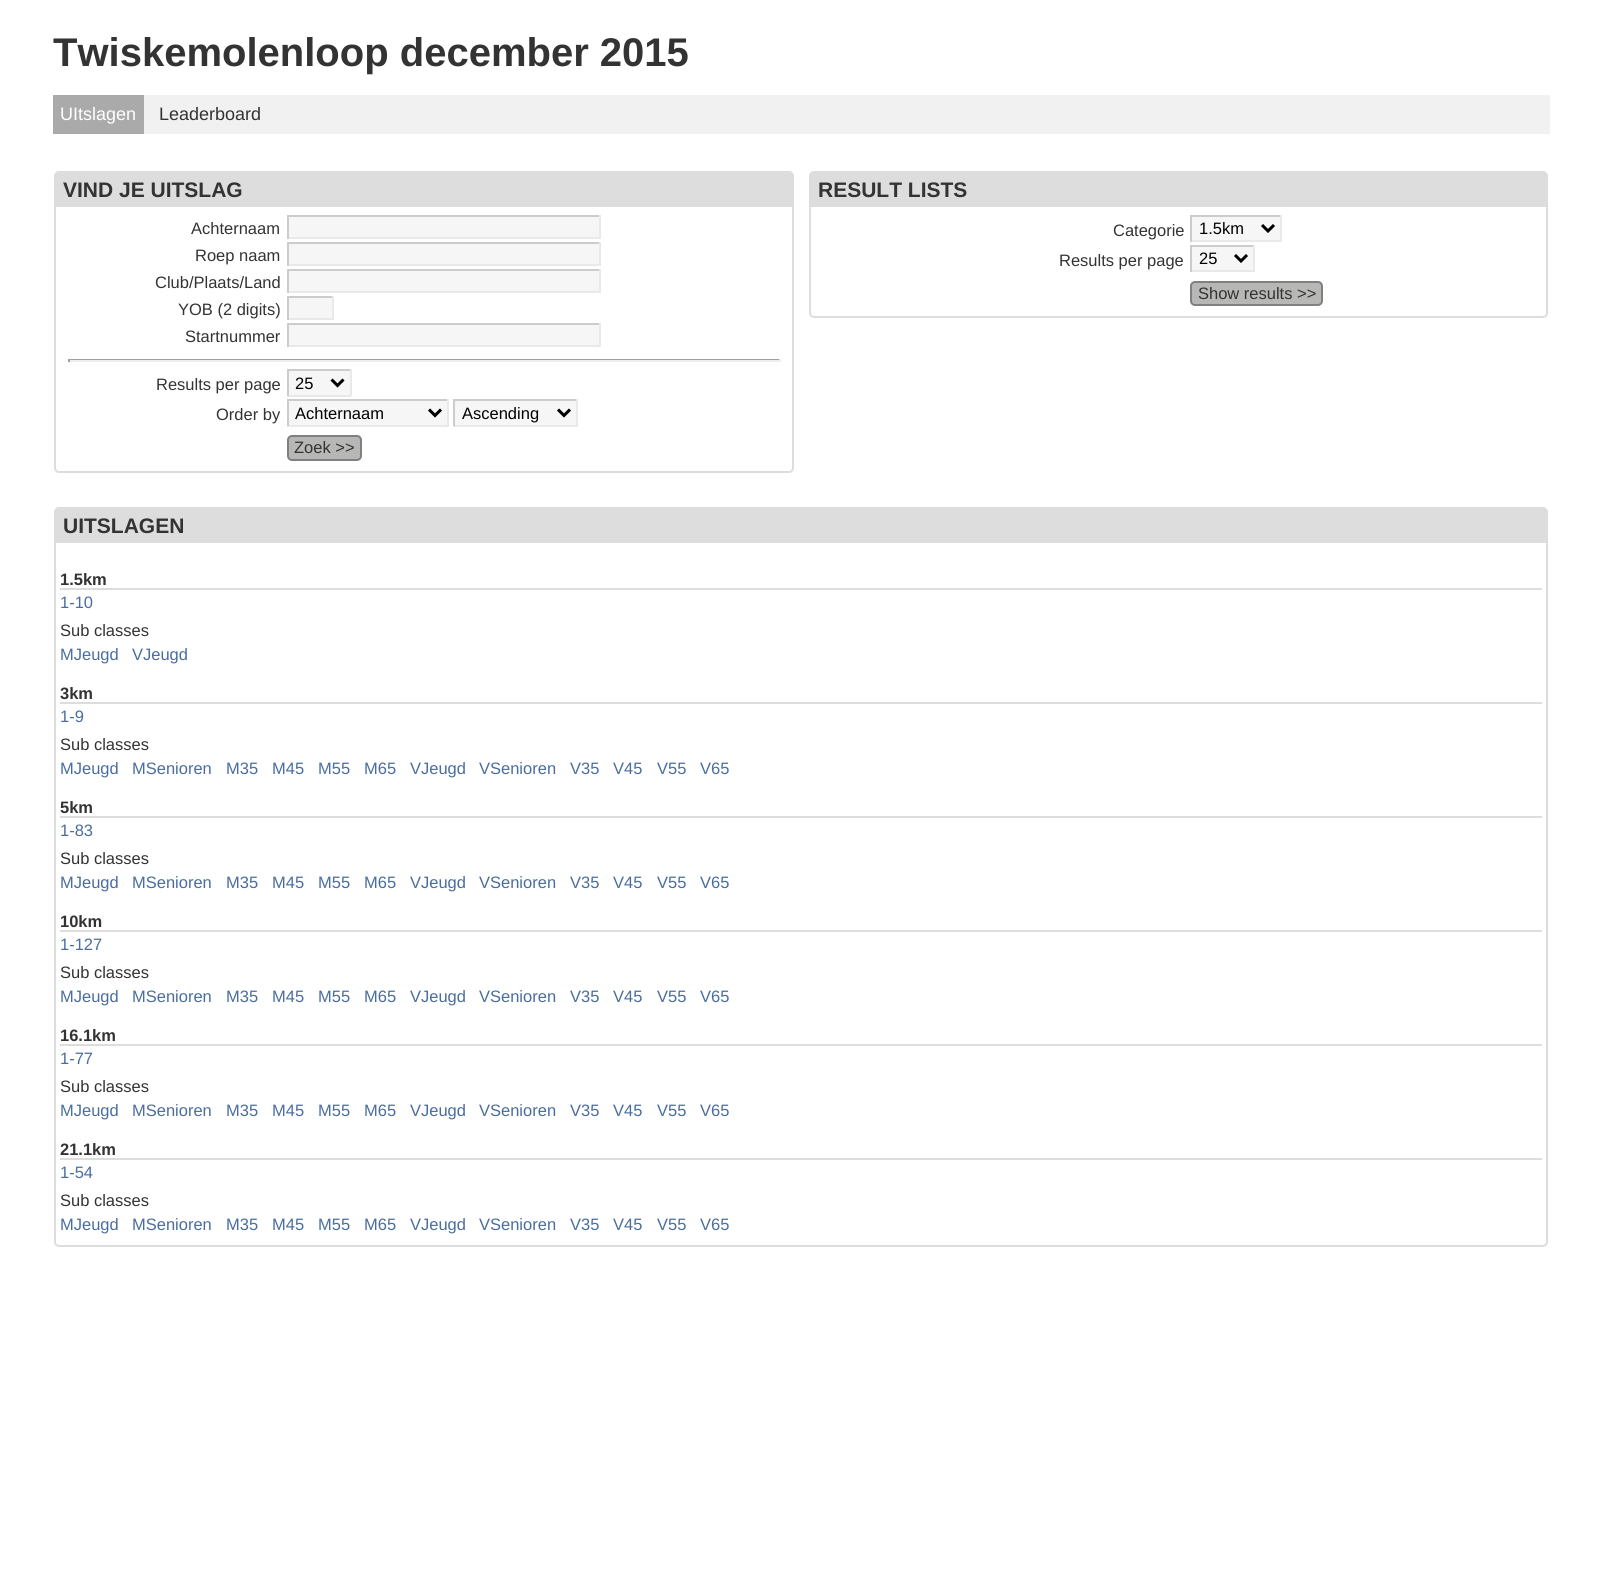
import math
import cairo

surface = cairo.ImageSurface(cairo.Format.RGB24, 1599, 1586)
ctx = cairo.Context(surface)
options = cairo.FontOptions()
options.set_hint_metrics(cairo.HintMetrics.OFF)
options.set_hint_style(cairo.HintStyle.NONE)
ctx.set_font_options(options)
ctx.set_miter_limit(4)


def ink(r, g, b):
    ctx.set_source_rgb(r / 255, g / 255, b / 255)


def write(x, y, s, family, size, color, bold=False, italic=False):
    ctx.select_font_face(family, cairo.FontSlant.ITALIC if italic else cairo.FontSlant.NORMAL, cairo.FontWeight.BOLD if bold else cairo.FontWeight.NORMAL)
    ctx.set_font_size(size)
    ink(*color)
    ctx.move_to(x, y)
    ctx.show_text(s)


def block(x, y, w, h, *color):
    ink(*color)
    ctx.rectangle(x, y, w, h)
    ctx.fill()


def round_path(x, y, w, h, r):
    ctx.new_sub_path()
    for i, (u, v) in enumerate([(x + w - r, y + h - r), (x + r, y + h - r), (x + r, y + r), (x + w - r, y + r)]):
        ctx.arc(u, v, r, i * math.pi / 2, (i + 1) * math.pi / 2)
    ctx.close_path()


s1 = dict(family="Liberation Sans", size=40, color=(51, 51, 51), bold=True)
s2 = dict(family="Liberation Sans", size=18, color=(255, 255, 255))
s3 = dict(family="Liberation Sans", size=18, color=(51, 51, 51))
s4 = dict(family="Liberation Sans", size=21, color=(51, 51, 51), bold=True)
s5 = dict(family="Liberation Sans", size=16.5, color=(51, 51, 51))
s6 = dict(family="Liberation Sans", size=16.5, color=(0, 0, 0))
s7 = dict(family="Liberation Sans", size=16.5, color=(51, 51, 51), bold=True)
s8 = dict(family="Liberation Sans", size=16.5, color=(73, 109, 158))

ink(255, 255, 255)
ctx.paint()
write(53, 66, "Twiskemolenloop december 2015", **s1)
block(144, 95, 1406, 39, 241, 241, 241)
block(53, 95, 91, 39, 170, 170, 170)
write(60, 120, "UItslagen", **s2)
write(159, 120, "Leaderboard", **s3)
round_path(55, 172, 738, 300, 4)
ink(221, 221, 221)
ctx.stroke()
block(56, 173, 736, 34, 221, 221, 221)
write(63, 197, "VIND JE UITSLAG", **s4)
write(191, 234, "Achternaam", **s5)
block(289, 217, 310, 20, 246, 246, 246)
block(287, 215, 313, 2, 204, 204, 204)
block(599, 215, 2, 24, 233, 233, 233)
block(287, 237, 313, 2, 233, 233, 233)
block(287, 215, 2, 24, 204, 204, 204)
write(195, 261, "Roep naam", **s5)
block(289, 244, 310, 20, 246, 246, 246)
block(287, 242, 313, 2, 204, 204, 204)
block(599, 242, 2, 24, 233, 233, 233)
block(287, 264, 313, 2, 233, 233, 233)
block(287, 242, 2, 24, 204, 204, 204)
write(155, 288, "Club/Plaats/Land", **s5)
block(289, 271, 310, 20, 246, 246, 246)
block(287, 269, 313, 2, 204, 204, 204)
block(599, 269, 2, 24, 233, 233, 233)
block(287, 291, 313, 2, 233, 233, 233)
block(287, 269, 2, 24, 204, 204, 204)
write(178, 315, "YOB (2 digits)", **s5)
block(289, 298, 43, 20, 246, 246, 246)
block(287, 296, 46, 2, 204, 204, 204)
block(332, 296, 2, 24, 233, 233, 233)
block(287, 318, 46, 2, 233, 233, 233)
block(287, 296, 2, 24, 204, 204, 204)
write(185, 342, "Startnummer", **s5)
block(289, 325, 310, 20, 246, 246, 246)
block(287, 323, 313, 2, 204, 204, 204)
block(599, 323, 2, 24, 233, 233, 233)
block(287, 345, 313, 2, 233, 233, 233)
block(287, 323, 2, 24, 204, 204, 204)
block(68, 359, 712, 1, 159, 159, 159)
block(779, 359, 2, 3, 238, 238, 238)
block(68, 360, 712, 2, 238, 238, 238)
block(68, 359, 2, 3, 159, 159, 159)
write(156, 390, "Results per page", **s5)
block(289, 371, 61, 24, 246, 246, 246)
block(287, 369, 64, 2, 204, 204, 204)
block(350, 369, 2, 27, 233, 233, 233)
block(287, 395, 64, 2, 233, 233, 233)
block(287, 369, 2, 27, 204, 204, 204)
ctx.new_path()
ctx.move_to(331.5, 379.5)
ctx.line_to(337.5, 385.5)
ctx.line_to(343.5, 379.5)
ink(0, 0, 0)
ctx.set_line_width(3)
ctx.stroke()
write(295, 389, "25", **s6)
write(216, 420, "Order by", **s5)
block(289, 401, 158, 24, 246, 246, 246)
block(287, 399, 162, 2, 204, 204, 204)
block(447, 399, 2, 27, 233, 233, 233)
block(287, 425, 162, 2, 233, 233, 233)
block(287, 399, 2, 27, 204, 204, 204)
ctx.new_path()
ctx.move_to(429, 409.5)
ctx.line_to(435, 415.5)
ctx.line_to(441, 409.5)
ink(0, 0, 0)
ctx.stroke()
write(295, 419, "Achternaam", **s6)
block(455, 401, 121, 24, 246, 246, 246)
block(453, 399, 125, 2, 204, 204, 204)
block(576, 399, 2, 27, 233, 233, 233)
block(453, 425, 125, 2, 233, 233, 233)
block(453, 399, 2, 27, 204, 204, 204)
ctx.new_path()
ctx.move_to(558, 409.5)
ctx.line_to(564, 415.5)
ctx.line_to(570, 409.5)
ink(0, 0, 0)
ctx.stroke()
write(462, 419, "Ascending", **s6)
ink(183, 183, 181)
round_path(288, 436, 73, 24, 4)
ctx.fill_preserve()
ink(128, 128, 128)
ctx.set_line_width(2)
ctx.stroke()
write(294, 453, "Zoek >>", **s5)
round_path(810, 172, 737, 145, 4)
ink(221, 221, 221)
ctx.stroke()
block(811, 173, 735, 34, 221, 221, 221)
write(818, 197, "RESULT LISTS", **s4)
write(1113, 236, "Categorie", **s5)
block(1192, 217, 88, 23, 246, 246, 246)
block(1190, 215, 91, 2, 204, 204, 204)
block(1280, 215, 2, 27, 233, 233, 233)
block(1190, 240, 91, 2, 233, 233, 233)
block(1190, 215, 2, 27, 204, 204, 204)
ctx.new_path()
ctx.move_to(1262, 225)
ctx.line_to(1268, 231)
ctx.line_to(1274, 225)
ink(0, 0, 0)
ctx.set_line_width(3)
ctx.stroke()
write(1199, 234, "1.5km", **s6)
write(1059, 266, "Results per page", **s5)
block(1192, 247, 61, 23, 246, 246, 246)
block(1190, 245, 64, 2, 204, 204, 204)
block(1253, 245, 2, 27, 233, 233, 233)
block(1190, 270, 64, 2, 233, 233, 233)
block(1190, 245, 2, 27, 204, 204, 204)
ctx.new_path()
ctx.move_to(1235, 255)
ctx.line_to(1241, 261)
ctx.line_to(1247, 255)
ink(0, 0, 0)
ctx.stroke()
write(1199, 264, "25", **s6)
ink(183, 183, 181)
round_path(1191, 282, 131, 23, 4)
ctx.fill_preserve()
ink(128, 128, 128)
ctx.set_line_width(2)
ctx.stroke()
write(1198, 299, "Show results >>", **s5)
round_path(55, 508, 1492, 738, 4)
ink(221, 221, 221)
ctx.stroke()
block(56, 509, 1490, 34, 221, 221, 221)
write(63, 533, "UITSLAGEN", **s4)
block(60, 588, 1482, 2, 221, 221, 221)
write(60, 585, "1.5km", **s7)
write(60, 608, "1-10", **s8)
write(60, 636, "Sub classes", **s5)
write(60, 660, "MJeugd", **s8)
write(132, 660, "VJeugd", **s8)
block(60, 702, 1482, 2, 221, 221, 221)
write(60, 699, "3km", **s7)
write(60, 722, "1-9", **s8)
write(60, 750, "Sub classes", **s5)
write(60, 774, "MJeugd", **s8)
write(132, 774, "MSenioren", **s8)
write(226, 774, "M35", **s8)
write(272, 774, "M45", **s8)
write(318, 774, "M55", **s8)
write(364, 774, "M65", **s8)
write(410, 774, "VJeugd", **s8)
write(479, 774, "VSenioren", **s8)
write(570, 774, "V35", **s8)
write(613, 774, "V45", **s8)
write(657, 774, "V55", **s8)
write(700, 774, "V65", **s8)
block(60, 816, 1482, 2, 221, 221, 221)
write(60, 813, "5km", **s7)
write(60, 836, "1-83", **s8)
write(60, 864, "Sub classes", **s5)
write(60, 888, "MJeugd", **s8)
write(132, 888, "MSenioren", **s8)
write(226, 888, "M35", **s8)
write(272, 888, "M45", **s8)
write(318, 888, "M55", **s8)
write(364, 888, "M65", **s8)
write(410, 888, "VJeugd", **s8)
write(479, 888, "VSenioren", **s8)
write(570, 888, "V35", **s8)
write(613, 888, "V45", **s8)
write(657, 888, "V55", **s8)
write(700, 888, "V65", **s8)
block(60, 930, 1482, 2, 221, 221, 221)
write(60, 927, "10km", **s7)
write(60, 950, "1-127", **s8)
write(60, 978, "Sub classes", **s5)
write(60, 1002, "MJeugd", **s8)
write(132, 1002, "MSenioren", **s8)
write(226, 1002, "M35", **s8)
write(272, 1002, "M45", **s8)
write(318, 1002, "M55", **s8)
write(364, 1002, "M65", **s8)
write(410, 1002, "VJeugd", **s8)
write(479, 1002, "VSenioren", **s8)
write(570, 1002, "V35", **s8)
write(613, 1002, "V45", **s8)
write(657, 1002, "V55", **s8)
write(700, 1002, "V65", **s8)
block(60, 1044, 1482, 2, 221, 221, 221)
write(60, 1041, "16.1km", **s7)
write(60, 1064, "1-77", **s8)
write(60, 1092, "Sub classes", **s5)
write(60, 1116, "MJeugd", **s8)
write(132, 1116, "MSenioren", **s8)
write(226, 1116, "M35", **s8)
write(272, 1116, "M45", **s8)
write(318, 1116, "M55", **s8)
write(364, 1116, "M65", **s8)
write(410, 1116, "VJeugd", **s8)
write(479, 1116, "VSenioren", **s8)
write(570, 1116, "V35", **s8)
write(613, 1116, "V45", **s8)
write(657, 1116, "V55", **s8)
write(700, 1116, "V65", **s8)
block(60, 1158, 1482, 2, 221, 221, 221)
write(60, 1155, "21.1km", **s7)
write(60, 1178, "1-54", **s8)
write(60, 1206, "Sub classes", **s5)
write(60, 1230, "MJeugd", **s8)
write(132, 1230, "MSenioren", **s8)
write(226, 1230, "M35", **s8)
write(272, 1230, "M45", **s8)
write(318, 1230, "M55", **s8)
write(364, 1230, "M65", **s8)
write(410, 1230, "VJeugd", **s8)
write(479, 1230, "VSenioren", **s8)
write(570, 1230, "V35", **s8)
write(613, 1230, "V45", **s8)
write(657, 1230, "V55", **s8)
write(700, 1230, "V65", **s8)
surface.write_to_png("screenshot.png")
